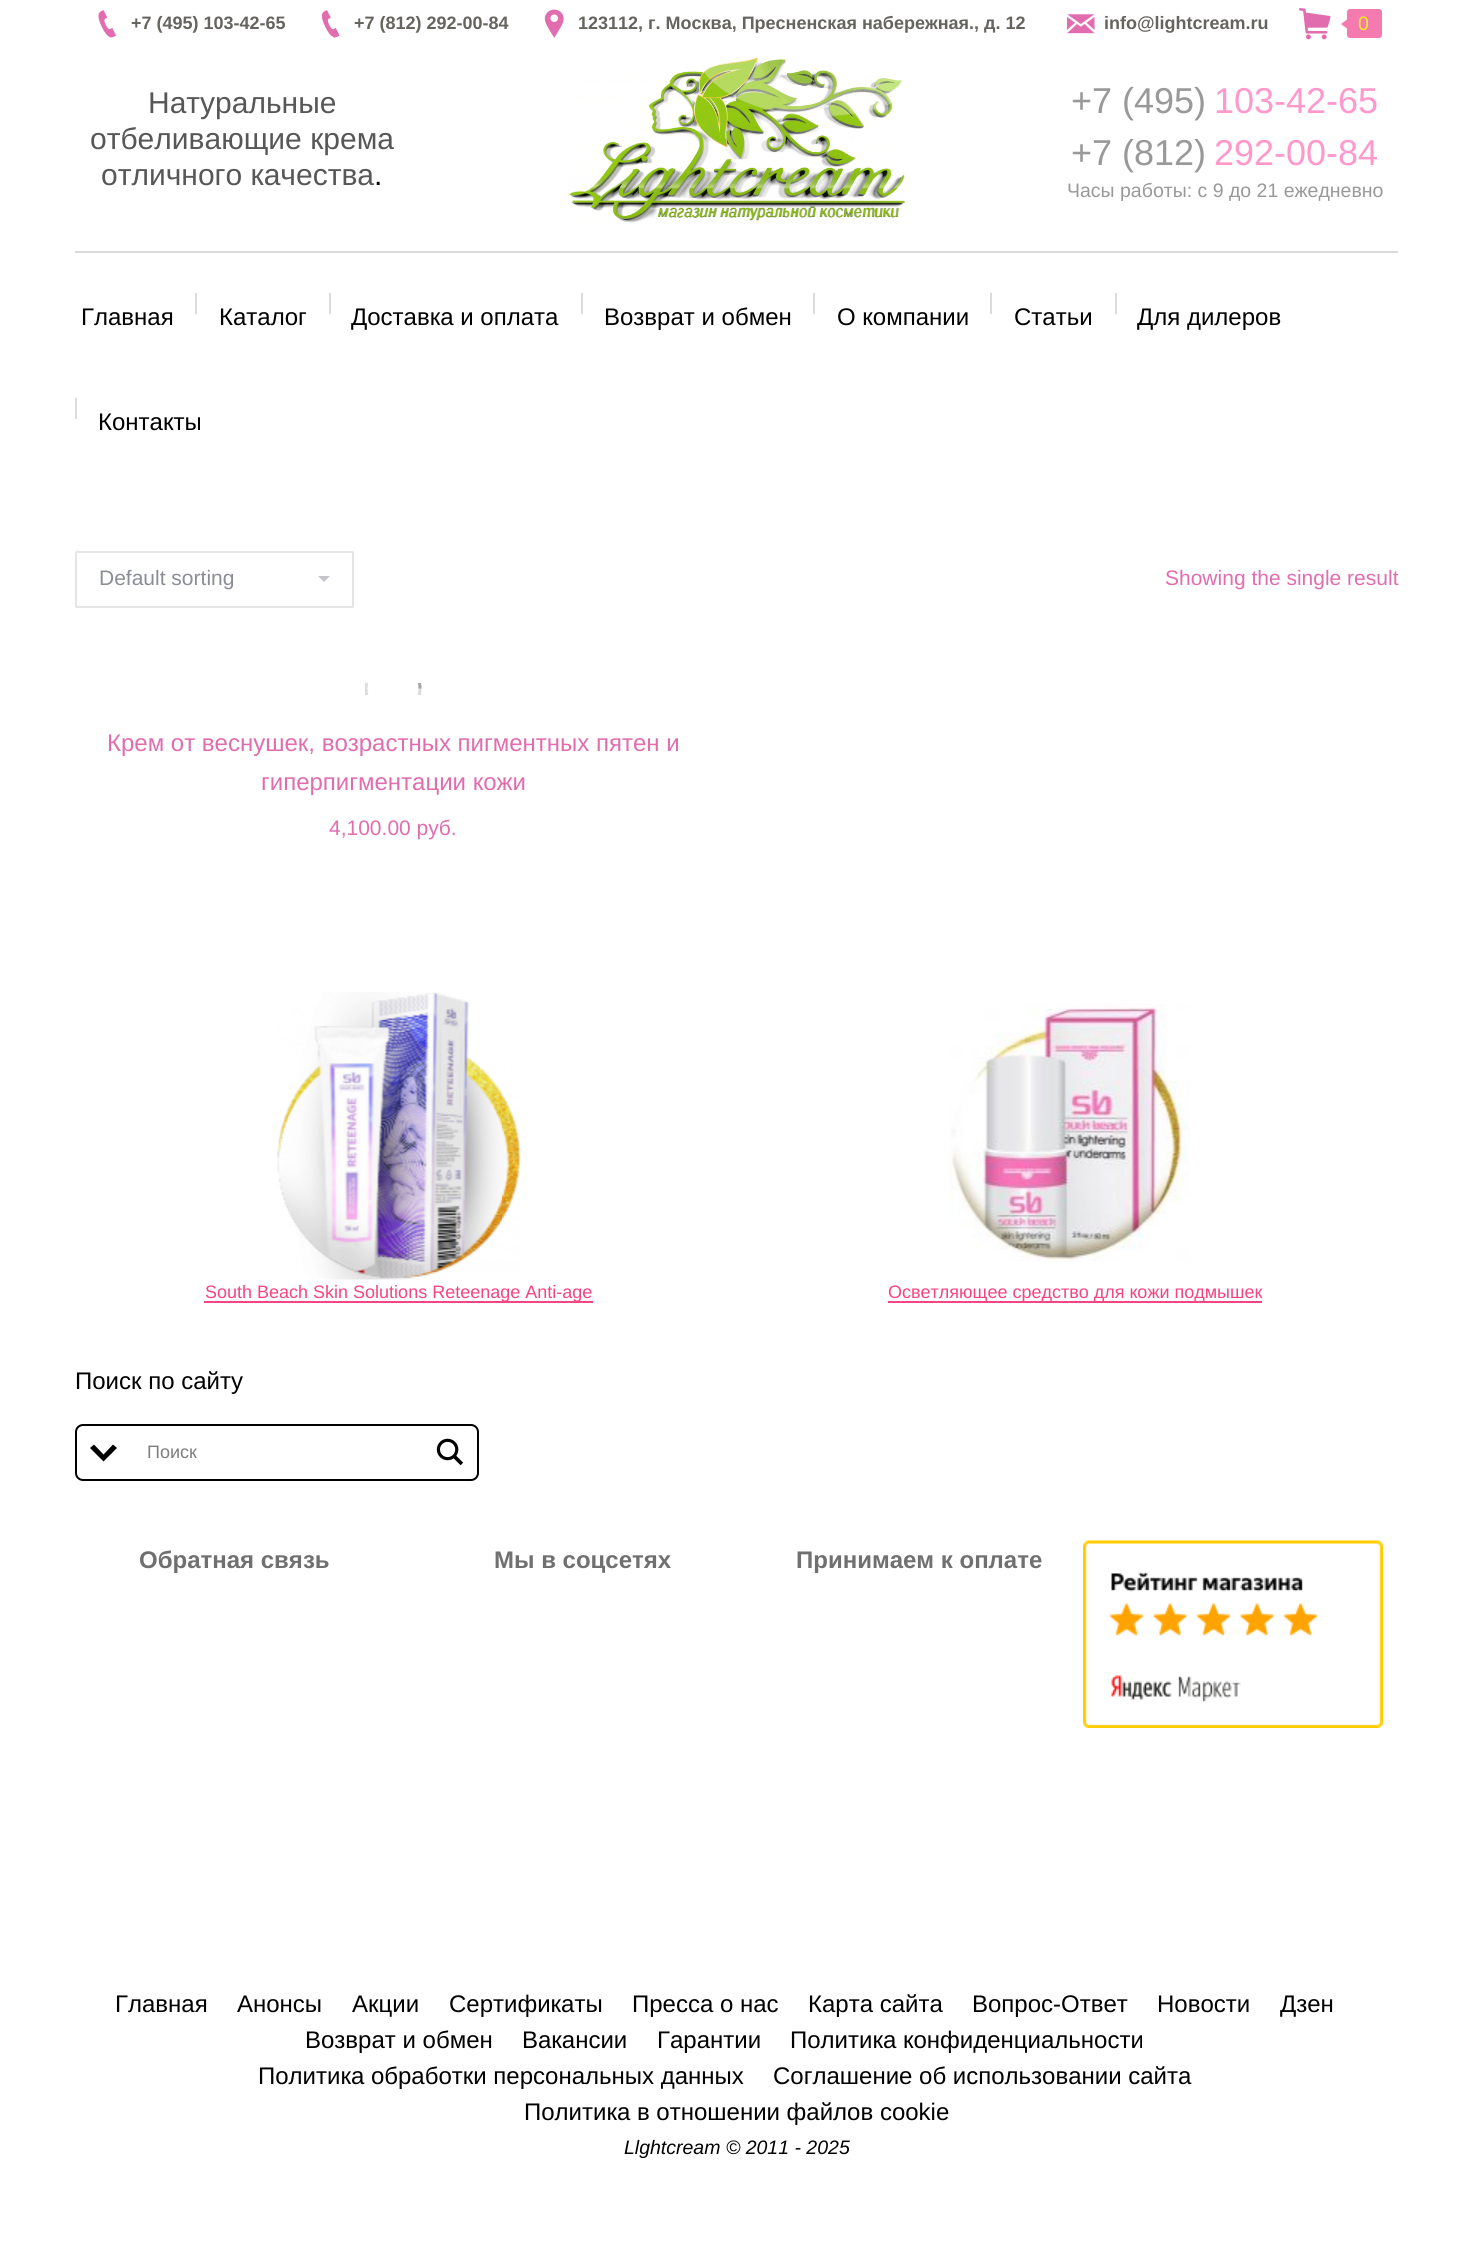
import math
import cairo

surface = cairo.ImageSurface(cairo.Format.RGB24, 1473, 2263)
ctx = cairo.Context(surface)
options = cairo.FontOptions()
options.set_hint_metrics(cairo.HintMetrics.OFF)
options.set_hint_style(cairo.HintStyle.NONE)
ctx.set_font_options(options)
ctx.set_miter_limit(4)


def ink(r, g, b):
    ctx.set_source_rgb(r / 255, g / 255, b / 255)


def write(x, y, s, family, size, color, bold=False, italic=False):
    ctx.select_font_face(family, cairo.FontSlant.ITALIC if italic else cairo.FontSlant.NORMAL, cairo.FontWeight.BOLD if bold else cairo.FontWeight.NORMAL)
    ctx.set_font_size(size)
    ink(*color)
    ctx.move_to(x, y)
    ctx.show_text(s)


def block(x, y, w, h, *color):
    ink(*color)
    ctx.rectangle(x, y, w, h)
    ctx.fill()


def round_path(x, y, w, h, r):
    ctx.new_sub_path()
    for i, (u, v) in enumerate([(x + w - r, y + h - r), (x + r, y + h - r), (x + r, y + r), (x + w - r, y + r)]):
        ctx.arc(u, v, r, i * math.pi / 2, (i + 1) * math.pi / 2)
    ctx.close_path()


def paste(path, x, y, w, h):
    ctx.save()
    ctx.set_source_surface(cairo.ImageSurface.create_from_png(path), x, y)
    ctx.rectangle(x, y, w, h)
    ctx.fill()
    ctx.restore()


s1 = dict(family="Liberation Sans", size=18, color=(102, 100, 95), bold=True)
s2 = dict(family="Liberation Sans", size=19.5, color=(238, 238, 34))
s3 = dict(family="Liberation Sans", size=30, color=(87, 87, 87))
s4 = dict(family="Liberation Sans", size=30, color=(0, 0, 0))
s5 = dict(family="Liberation Sans", size=36, color=(153, 153, 153))
s6 = dict(family="Liberation Sans", size=36, color=(255, 153, 204))
s7 = dict(family="Liberation Sans", size=19.5, color=(153, 153, 153))
s8 = dict(family="Liberation Sans", size=24, color=(0, 0, 0))
s9 = dict(family="Liberation Sans", size=21, color=(139, 141, 148))
s10 = dict(family="Liberation Sans", size=21, color=(225, 109, 175))
s11 = dict(family="Liberation Sans", size=24, color=(225, 109, 175))
s12 = dict(family="Liberation Sans", size=18, color=(246, 68, 128))
s13 = dict(family="Liberation Sans", size=18, color=(125, 125, 125))
s14 = dict(family="Liberation Sans", size=24, color=(112, 112, 112), bold=True)
s15 = dict(family="Liberation Sans", size=19.5, color=(0, 0, 0), italic=True)

ink(255, 255, 255)
ctx.paint()
paste("pic1.png", 98, 10, 18, 28)
write(131, 29, "+7 (495) 103-42-65", **s1)
paste("pic2.png", 322, 10, 18, 28)
write(354, 29, "+7 (812) 292-00-84", **s1)
paste("pic3.png", 544, 9, 20, 29)
write(578, 29, "123112, г. Москва, Пресненская набережная., д. 12", **s1)
paste("pic4.png", 1066, 14, 29, 20)
write(1104, 29, "info@lightcream.ru", **s1)
paste("pic5.png", 1299, 8, 32, 32)
ink(244, 122, 175)
round_path(1347, 9, 35, 29, 3)
ctx.fill()
ctx.new_path()
ctx.move_to(1347, 19.5)
ctx.line_to(1347, 28.5)
ctx.line_to(1341, 24)
ctx.close_path()
ctx.fill()
write(1358, 30, "0", **s2)
write(148, 113, "Натуральные", **s3)
write(90, 149, "отбеливающие крема", **s3)
write(101, 185, "отличного качества", **s3)
write(374, 185, ".", **s4)
paste("pic6.png", 569, 57, 336, 166)
write(1071, 113, "+7 (495)", **s5)
write(1214, 113, "103-42-65", **s6)
write(1071, 165, "+7 (812)", **s5)
write(1214, 165, "292-00-84", **s6)
write(1067, 197, "Часы работы: с 9 до 21 ежедневно", **s7)
block(75, 251, 1323, 2, 219, 219, 219)
write(81, 325, "Главная", **s8)
block(195, 293, 2, 21, 219, 219, 219)
write(219, 325, "Каталог", **s8)
block(329, 293, 2, 21, 219, 219, 219)
write(351, 325, "Доставка и оплата", **s8)
block(581, 293, 2, 21, 219, 219, 219)
write(604, 325, "Возврат и обмен", **s8)
block(813, 293, 2, 21, 219, 219, 219)
write(837, 325, "О компании", **s8)
block(990, 293, 2, 21, 219, 219, 219)
write(1014, 325, "Статьи", **s8)
block(1115, 293, 2, 21, 219, 219, 219)
write(1137, 325, "Для дилеров", **s8)
block(75, 398, 2, 21, 219, 219, 219)
write(98, 430, "Контакты", **s8)
ink(196, 197, 201)
ctx.new_path()
ctx.move_to(318, 576)
ctx.line_to(324, 582)
ctx.line_to(330, 576)
ctx.close_path()
ctx.fill()
round_path(76, 552, 277, 55, 0.5)
ink(229, 229, 229)
ctx.stroke()
write(99, 585, "Default sorting", **s9)
write(1165, 585, "Showing the single result", **s10)
ctx.save()
ctx.rectangle(365, 683, 57, 12)
ctx.clip()
ctx.arc(393, 688.5, 27, 0, 2 * math.pi)
ink(220, 220, 220)
ctx.set_line_width(3)
ctx.stroke()
ctx.new_path()
ctx.move_to(420, 688.5)
ctx.curve_to(420, 673.5, 408, 661.5, 393, 661.5)
ctx.set_source_rgba(0, 0, 0, 0.25)
ctx.stroke()
ctx.restore()
write(107, 751, "Крем от веснушек, возрастных пигментных пятен и", **s11)
write(261, 790, "гиперпигментации кожи", **s11)
write(329, 835, "4,100.00 руб.", **s10)
paste("pic7.png", 277, 992, 244, 288)
block(204, 1301, 389, 2, 246, 69, 128)
write(205, 1298, "South Beach Skin Solutions Reteenage Anti-age", **s12)
paste("pic8.png", 949, 1004, 241, 258)
block(888, 1301, 374, 2, 246, 69, 128)
write(888, 1298, "Осветляющее средство для кожи подмышек", **s12)
write(75, 1389, "Поиск по сайту", **s8)
round_path(76, 1425, 402, 55, 7)
ctx.stroke()
ctx.new_path()
ctx.move_to(113, 1444.5)
ctx.line_to(117, 1448)
ctx.line_to(103.5, 1461.5)
ctx.line_to(90, 1448)
ctx.line_to(94, 1444.5)
ctx.line_to(103.5, 1454.5)
ctx.close_path()
ctx.fill()
write(147, 1458, "Поиск", **s13)
paste("pic9.png", 436, 1438, 28, 28)
write(139, 1568, "Обратная связь", **s14)
write(494, 1568, "Мы в соцсетях", **s14)
write(796, 1568, "Принимаем к оплате", **s14)
paste("pic10.png", 1083, 1540, 300, 188)
write(115, 2012, "Главная", **s8)
write(237, 2012, "Анонсы", **s8)
write(352, 2012, "Акции", **s8)
write(449, 2012, "Сертификаты", **s8)
write(632, 2012, "Пресса о нас", **s8)
write(808, 2012, "Карта сайта", **s8)
write(972, 2012, "Вопрос-Ответ", **s8)
write(1157, 2012, "Новости", **s8)
write(1280, 2012, "Дзен", **s8)
write(305, 2048, "Возврат и обмен", **s8)
write(522, 2048, "Вакансии", **s8)
write(657, 2048, "Гарантии", **s8)
write(790, 2048, "Политика конфиденциальности", **s8)
write(258, 2084, "Политика обработки персональных данных", **s8)
write(773, 2084, "Соглашение об использовании сайта", **s8)
write(524, 2120, "Политика в отношении файлов cookie", **s8)
write(624, 2154, "Llghtcream © 2011 - 2025", **s15)
surface.write_to_png("screenshot.png")
